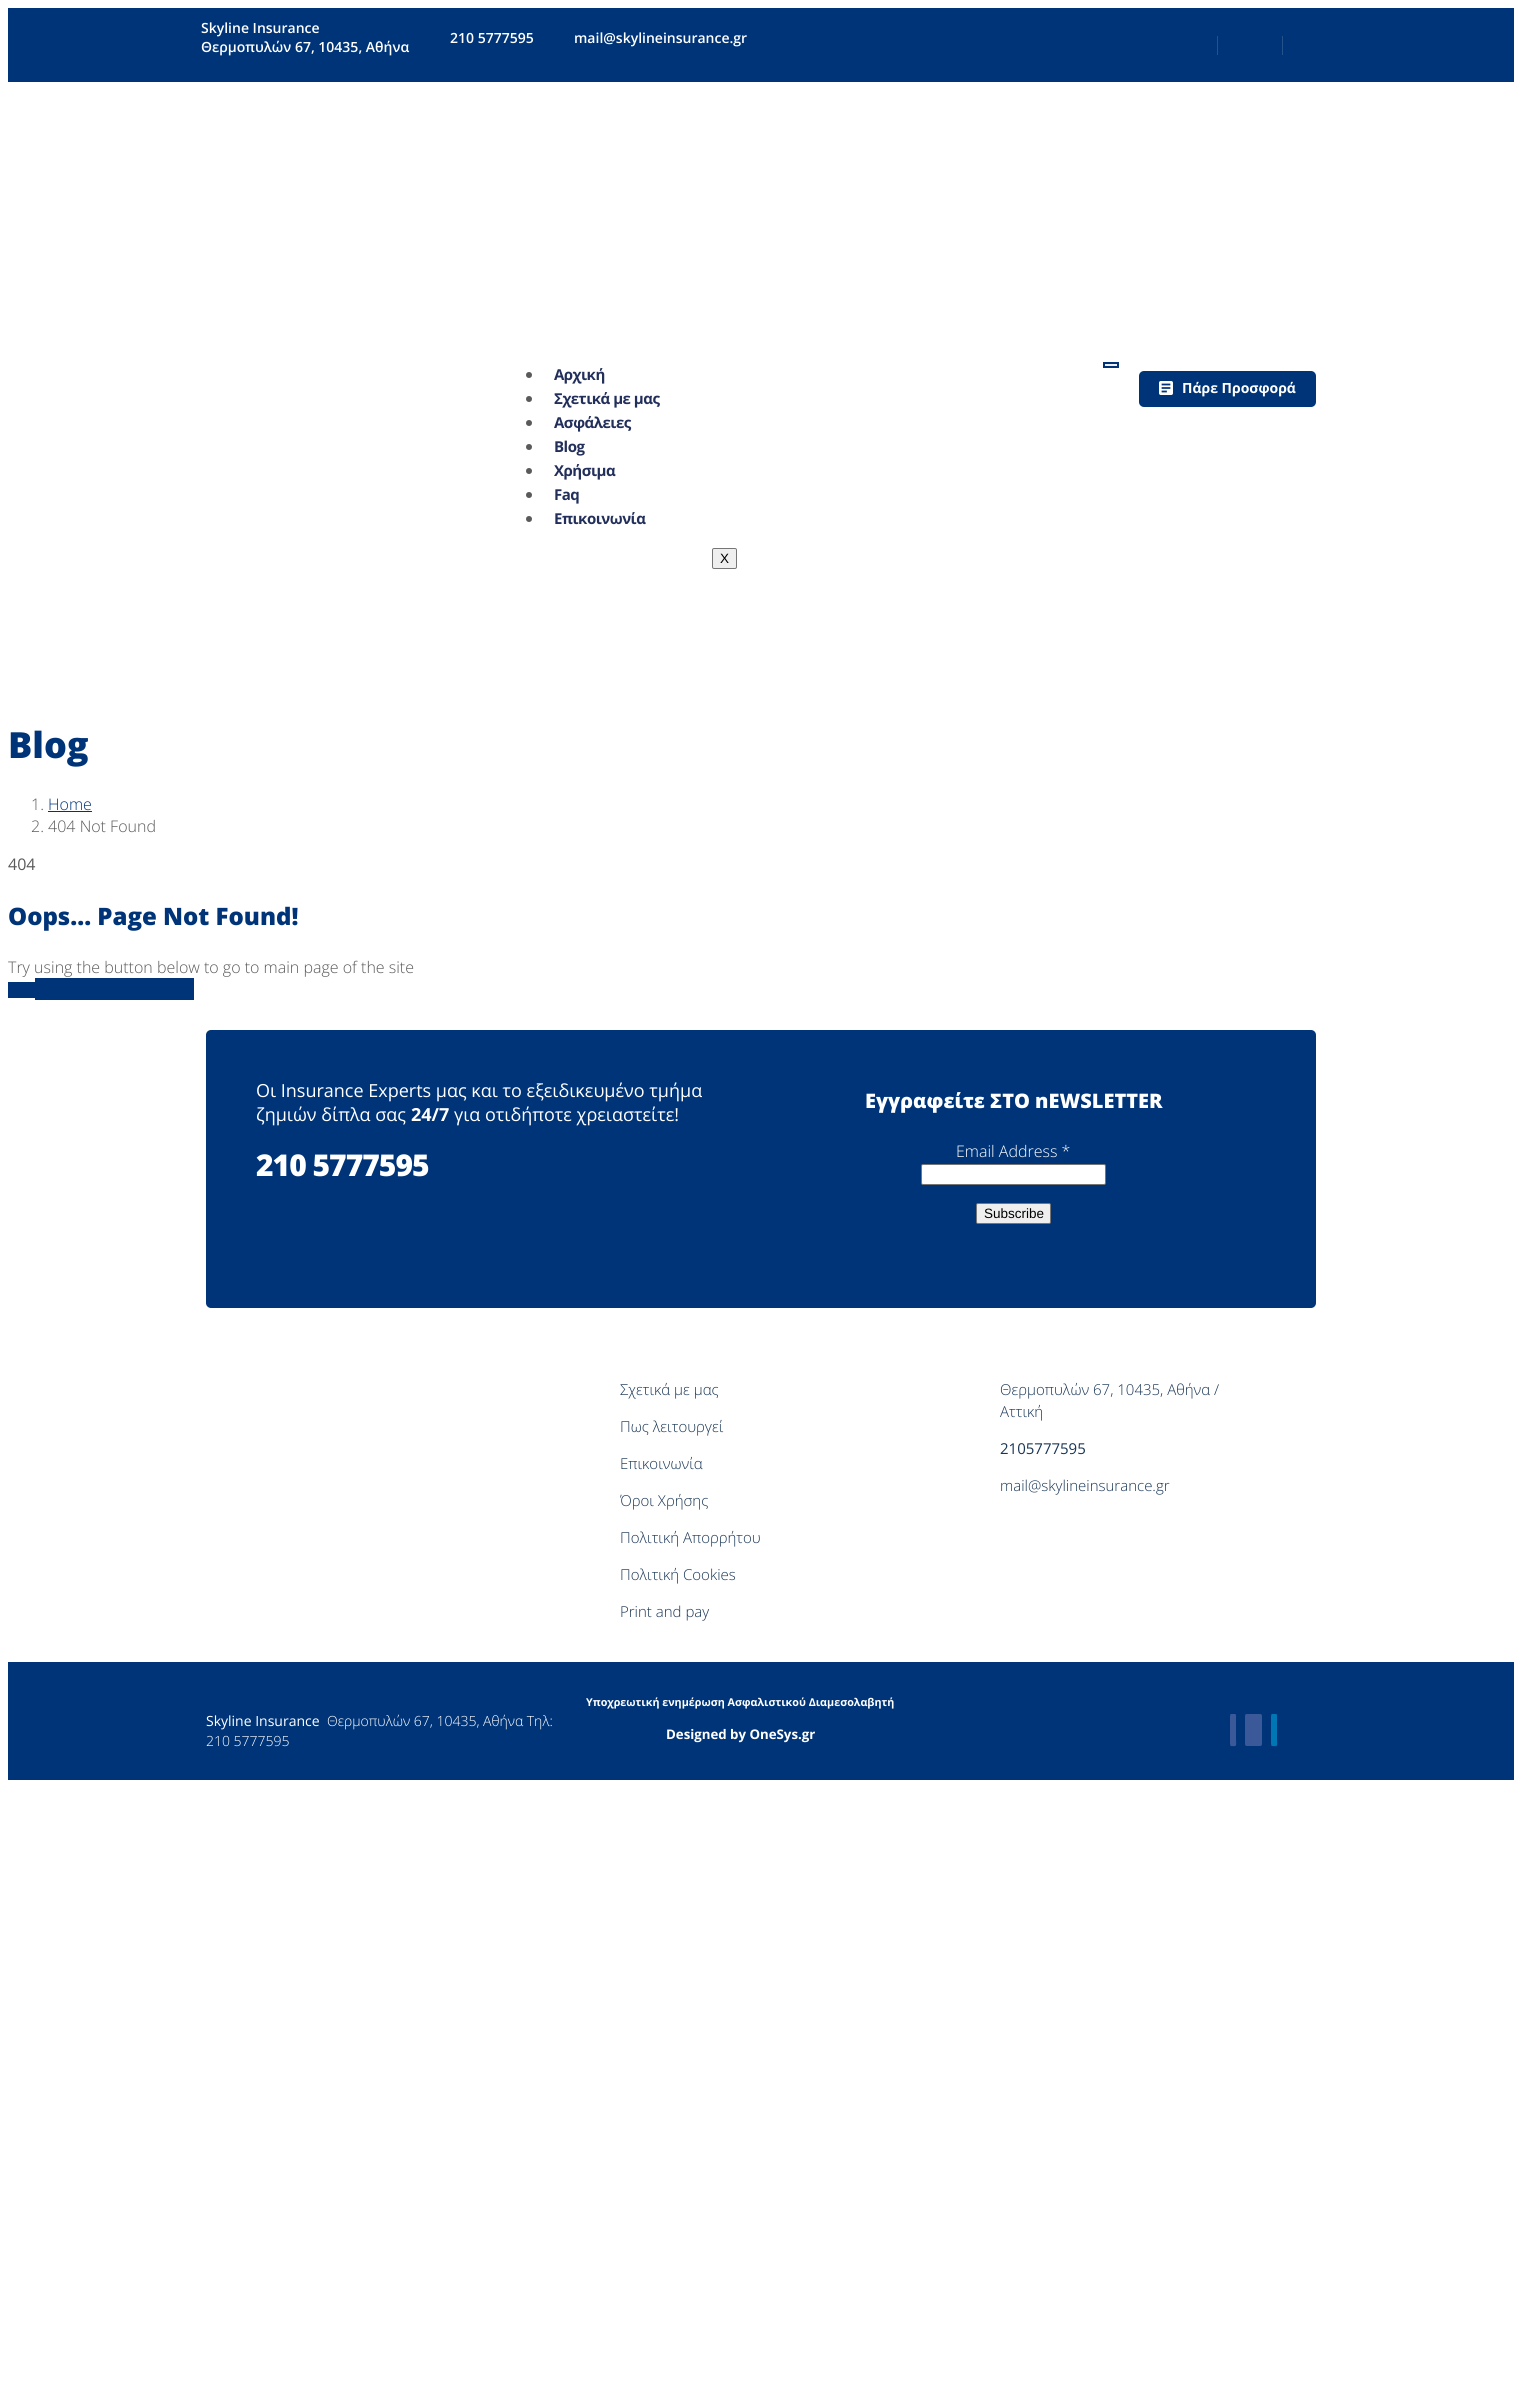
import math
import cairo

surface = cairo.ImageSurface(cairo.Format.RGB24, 1522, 2386)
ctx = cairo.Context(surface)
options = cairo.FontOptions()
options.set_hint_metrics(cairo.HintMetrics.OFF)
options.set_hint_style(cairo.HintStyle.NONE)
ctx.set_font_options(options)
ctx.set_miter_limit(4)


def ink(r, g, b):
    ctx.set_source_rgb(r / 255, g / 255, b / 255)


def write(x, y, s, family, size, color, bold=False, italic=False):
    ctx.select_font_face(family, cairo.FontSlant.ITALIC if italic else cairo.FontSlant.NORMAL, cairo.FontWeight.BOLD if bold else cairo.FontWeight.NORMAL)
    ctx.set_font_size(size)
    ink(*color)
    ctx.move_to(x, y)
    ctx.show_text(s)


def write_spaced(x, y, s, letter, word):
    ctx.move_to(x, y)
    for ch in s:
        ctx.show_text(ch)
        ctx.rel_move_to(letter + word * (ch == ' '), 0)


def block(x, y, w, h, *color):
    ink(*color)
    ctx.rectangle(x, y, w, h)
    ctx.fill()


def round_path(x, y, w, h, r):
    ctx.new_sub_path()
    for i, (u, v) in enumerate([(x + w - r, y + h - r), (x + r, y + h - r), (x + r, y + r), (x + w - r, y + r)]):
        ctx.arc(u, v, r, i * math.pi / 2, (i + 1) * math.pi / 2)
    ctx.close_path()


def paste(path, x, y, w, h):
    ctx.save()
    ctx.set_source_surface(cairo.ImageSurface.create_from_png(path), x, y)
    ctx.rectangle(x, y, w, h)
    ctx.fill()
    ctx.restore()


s1 = dict(family="Open Sans SemiBold", size=14, color=(255, 255, 255))
s2 = dict(family="Liberation Sans", size=13.5, color=(0, 0, 0))
s3 = dict(family="Open Sans", size=14, color=(255, 255, 255), bold=True)
s4 = dict(family="Open Sans ExtraBold", size=36, color=(0, 52, 120))
s5 = dict(family="Open Sans Light", size=16, color=(90, 90, 90))
s6 = dict(family="Open Sans Light", size=16, color=(0, 52, 120))
s7 = dict(family="Open Sans", size=16, color=(90, 90, 90))
s8 = dict(family="Open Sans ExtraBold", size=24, color=(0, 52, 120))
s9 = dict(family="Open Sans", size=18, color=(255, 255, 255))
s10 = dict(family="Open Sans", size=18, color=(255, 255, 255), bold=True)
s11 = dict(family="Open Sans ExtraBold", size=20, color=(255, 255, 255))
s12 = dict(family="Open Sans Light", size=16, color=(255, 255, 255))
s13 = dict(family="Open Sans Light", size=15, color=(25, 54, 86))
s14 = dict(family="Open Sans", size=15, color=(25, 54, 86))
s15 = dict(family="Open Sans", size=14, color=(255, 255, 255))
s16 = dict(family="Open Sans Light", size=14, color=(255, 255, 255))
s17 = dict(family="Open Sans", size=10.75, color=(255, 255, 255), bold=True)
s18 = dict(family="Open Sans", size=13.25, color=(255, 255, 255), bold=True)

ink(255, 255, 255)
ctx.paint()
block(8, 8, 1506, 74, 0, 52, 120)
write(201, 33, "Skyline Insurance", **s1)
write(201, 52, "Θερμοπυλών 67, 10435, Αθήνα", **s1)
write(450, 43, "210 5777595", **s1)
write(574, 43, "mail@skylineinsurance.gr", **s1)
block(1217, 36, 1, 19, 38, 82, 140)
block(1282, 36, 1, 19, 38, 82, 140)
ink(239, 239, 239)
ctx.rectangle(1104, 363, 14, 4)
ctx.fill_preserve()
ink(0, 52, 120)
ctx.stroke()
ink(90, 90, 90)
ctx.arc(529, 375, 3, 0, 2 * math.pi)
ctx.fill()
ctx.select_font_face("Open Sans", cairo.FontSlant.NORMAL, cairo.FontWeight.BOLD)
ctx.set_font_size(15)
ink(34, 47, 90)
write_spaced(554, 380, "Αρχική", -0.5, 0)
ink(90, 90, 90)
ctx.new_path()
ctx.arc(529, 399, 3, 0, 2 * math.pi)
ctx.fill()
ink(34, 47, 90)
write_spaced(554, 404, "Σχετικά με μας", -0.5, 0)
ink(90, 90, 90)
ctx.new_path()
ctx.arc(529, 423, 3, 0, 2 * math.pi)
ctx.fill()
ink(34, 47, 90)
write_spaced(554, 428, "Ασφάλειες", -0.5, 0)
ink(90, 90, 90)
ctx.new_path()
ctx.arc(529, 447, 3, 0, 2 * math.pi)
ctx.fill()
ink(34, 47, 90)
write_spaced(554, 452, "Blog", -0.5, 0)
ink(90, 90, 90)
ctx.new_path()
ctx.arc(529, 471, 3, 0, 2 * math.pi)
ctx.fill()
ink(34, 47, 90)
write_spaced(554, 476, "Χρήσιμα", -0.5, 0)
ink(90, 90, 90)
ctx.new_path()
ctx.arc(529, 495, 3, 0, 2 * math.pi)
ctx.fill()
ink(34, 47, 90)
write_spaced(554, 500, "Faq", -0.5, 0)
ink(90, 90, 90)
ctx.new_path()
ctx.arc(529, 519, 3, 0, 2 * math.pi)
ctx.fill()
ink(34, 47, 90)
write_spaced(554, 524, "Επικοινωνία", -0.5, 0)
ink(239, 239, 239)
round_path(712.5, 548.5, 24, 20, 1.5)
ctx.fill_preserve()
ink(118, 118, 118)
ctx.set_line_width(1)
ctx.stroke()
write(720, 563, "X", **s2)
ink(0, 52, 120)
round_path(1139, 371, 177, 36, 5)
ctx.fill()
paste("pic1.png", 1159, 381, 14, 14)
write(1182, 393, "Πάρε Προσφορά", **s3)
write(8, 758, "Blog", **s4)
write(31, 810, "1.", **s5)
write(48, 810, "Home", **s6)
block(48, 811, 44, 1, 0, 52, 120)
write(31, 832, "2. 404 Not Found", **s5)
write(8, 870, "404", **s7)
write(8, 925, "Oops... Page Not Found!", **s8)
write(8, 973, "Try using the button below to go to main page of the site", **s5)
block(8, 982, 27, 16, 0, 52, 120)
block(35, 978, 159, 22, 0, 52, 120)
round_path(206, 1030, 1110, 278, 5)
ctx.fill()
write(256, 1097, "Οι Insurance Experts μας και το εξειδικευμένο τμήμα", **s9)
write(256, 1121, "ζημιών δίπλα σας", **s9)
write(411, 1121, "24/7", **s10)
write(454, 1121, "για οτιδήποτε χρειαστείτε!", **s9)
ctx.select_font_face("Open Sans ExtraBold")
ctx.set_font_size(30)
write_spaced(256, 1176, "210 5777595", -1, 0)
write(865, 1108, "Εγγραφείτε ΣΤΟ nEWSLETTER", **s11)
write(956, 1157, "Email Address *", **s12)
round_path(921.5, 1164.5, 184, 20, 1.5)
ctx.fill_preserve()
ink(118, 118, 118)
ctx.stroke()
ink(239, 239, 239)
round_path(976.5, 1203.5, 74, 20, 1.5)
ctx.fill_preserve()
ink(118, 118, 118)
ctx.stroke()
write(984, 1218, "Subscribe", **s2)
write(620, 1395, "Σχετικά με μας", **s13)
write(620, 1432, "Πως λειτουργεί", **s13)
write(620, 1469, "Επικοινωνία", **s13)
write(620, 1506, "Όροι Χρήσης", **s13)
write(620, 1543, "Πολιτική Απορρήτου", **s13)
write(620, 1580, "Πολιτική Cookies", **s13)
write(620, 1617, "Print and pay", **s13)
write(1000, 1395, "Θερμοπυλών 67, 10435, Αθήνα /", **s13)
write(1000, 1417, "Αττική", **s13)
write(1000, 1454, "2105777595", **s14)
write(1000, 1491, "mail@skylineinsurance.gr", **s13)
block(8, 1662, 1506, 118, 0, 52, 120)
write(206, 1726, "Skyline Insurance", **s15)
write(327, 1726, "Θερμοπυλών 67, 10435, Αθήνα Τηλ:", **s16)
write(206, 1746, "210 5777595", **s16)
write(586, 1706, "Υποχρεωτική ενημέρωση Ασφαλιστικού Διαμεσολαβητή", **s17)
write(666, 1739, "Designed by OneSys.gr", **s18)
ink(59, 89, 152)
ctx.new_path()
ctx.move_to(1230.5, 1714)
ctx.line_to(1234, 1714)
ctx.curve_to(1236, 1714, 1236, 1714, 1236, 1716.5)
ctx.line_to(1236, 1739)
ctx.curve_to(1236, 1746.5, 1237.5, 1746.5, 1230.5, 1746)
ctx.line_to(1230, 1743.5)
ctx.line_to(1230, 1716.5)
ctx.close_path()
ctx.move_to(1246.5, 1714)
ctx.line_to(1260.5, 1714)
ctx.curve_to(1261.5, 1714, 1262, 1715, 1262, 1716.5)
ctx.line_to(1262, 1743.5)
ctx.curve_to(1262, 1745, 1261.5, 1746, 1260.5, 1746)
ctx.line_to(1246.5, 1746)
ctx.curve_to(1245.5, 1746, 1245, 1745, 1245, 1743.5)
ctx.line_to(1245, 1716.5)
ctx.curve_to(1245, 1715, 1245.5, 1714, 1246.5, 1714)
ctx.close_path()
ctx.fill()
ink(0, 119, 181)
ctx.new_path()
ctx.move_to(1271.5, 1714)
ctx.line_to(1275, 1714)
ctx.curve_to(1277, 1714, 1277, 1714, 1277, 1716.5)
ctx.line_to(1277, 1739)
ctx.curve_to(1277, 1746.5, 1278.5, 1746.5, 1271.5, 1746)
ctx.line_to(1271, 1743.5)
ctx.line_to(1271, 1716.5)
ctx.close_path()
ctx.fill()
surface.write_to_png("screenshot.png")
